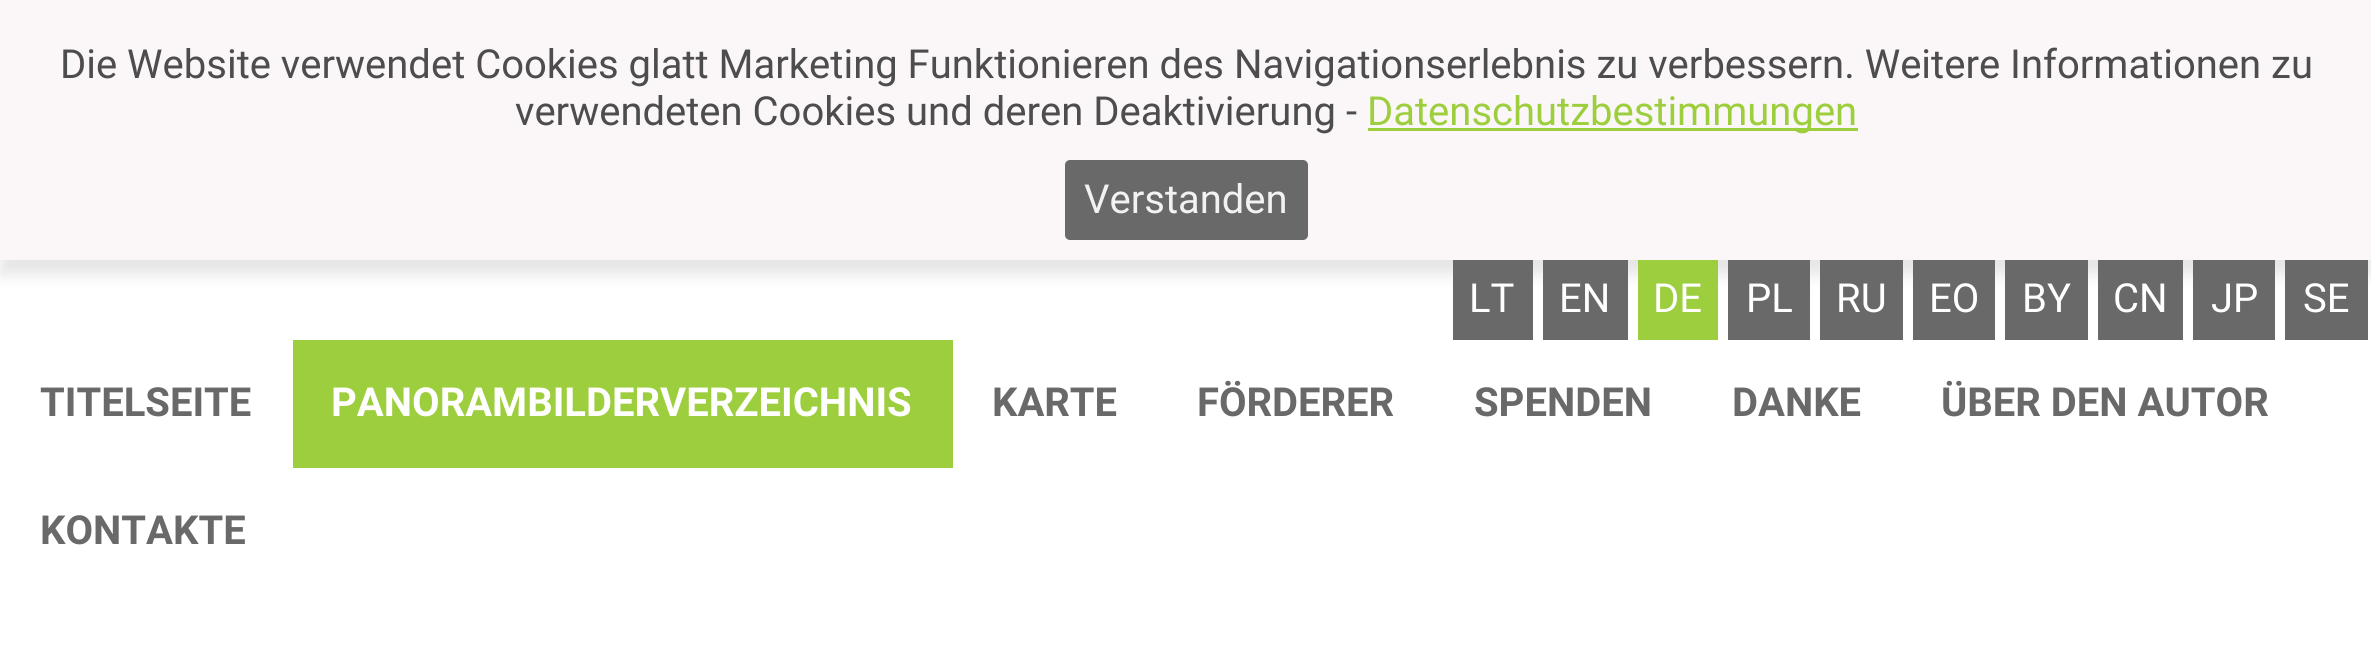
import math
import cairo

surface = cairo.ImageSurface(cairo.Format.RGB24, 2371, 652)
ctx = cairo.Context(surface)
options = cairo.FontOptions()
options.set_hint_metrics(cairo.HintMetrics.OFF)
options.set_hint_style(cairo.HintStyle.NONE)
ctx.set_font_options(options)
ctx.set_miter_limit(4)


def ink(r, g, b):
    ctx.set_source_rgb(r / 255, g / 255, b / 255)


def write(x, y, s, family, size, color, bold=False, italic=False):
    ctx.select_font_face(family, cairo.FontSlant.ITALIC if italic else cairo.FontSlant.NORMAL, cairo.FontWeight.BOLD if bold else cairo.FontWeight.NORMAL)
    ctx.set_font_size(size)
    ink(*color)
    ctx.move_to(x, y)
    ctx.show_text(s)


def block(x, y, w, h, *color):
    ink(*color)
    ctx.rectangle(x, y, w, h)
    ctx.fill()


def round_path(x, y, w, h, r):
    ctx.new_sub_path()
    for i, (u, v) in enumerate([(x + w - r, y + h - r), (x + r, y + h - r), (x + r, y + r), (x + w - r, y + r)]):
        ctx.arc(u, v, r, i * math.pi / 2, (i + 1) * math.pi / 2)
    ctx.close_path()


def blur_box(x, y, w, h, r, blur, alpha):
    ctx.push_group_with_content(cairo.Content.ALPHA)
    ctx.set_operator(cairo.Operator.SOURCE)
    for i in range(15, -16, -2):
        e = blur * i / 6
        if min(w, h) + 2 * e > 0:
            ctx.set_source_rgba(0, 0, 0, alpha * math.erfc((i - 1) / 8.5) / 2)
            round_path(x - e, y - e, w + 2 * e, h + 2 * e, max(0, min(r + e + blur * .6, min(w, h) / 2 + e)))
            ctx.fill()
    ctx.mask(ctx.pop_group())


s1 = dict(family="Roboto", size=40, color=(77, 77, 77))
s2 = dict(family="Roboto", size=40, color=(157, 206, 61))
s3 = dict(family="Roboto", size=40, color=(242, 242, 242))
s4 = dict(family="Roboto", size=40, color=(255, 255, 255))
s5 = dict(family="Roboto", size=40, color=(105, 105, 105), bold=True)
s6 = dict(family="Roboto", size=40, color=(255, 255, 255), bold=True)

ink(255, 255, 255)
ctx.paint()
ink(0, 0, 0)
blur_box(0, 15, 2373, 260, 0, 7.5, 0.1)
block(0, 0, 2371, 260, 251, 247, 248)
write(60, 78, "Die Website verwendet Cookies glatt Marketing Funktionieren des Navigationserlebnis zu verbessern. Weitere Informationen zu", **s1)
write(515, 125, "verwendeten Cookies und deren Deaktivierung -", **s1)
block(1368, 128, 490, 3, 157, 206, 61)
write(1367, 125, "Datenschutzbestimmungen", **s2)
ink(105, 105, 105)
round_path(1065, 160, 243, 80, 5)
ctx.fill()
write(1084, 213, "Verstanden", **s3)
block(1453, 260, 80, 80, 105, 105, 105)
write(1469, 312, "LT", **s4)
block(1543, 260, 85, 80, 105, 105, 105)
write(1559, 312, "EN", **s4)
block(1638, 260, 80, 80, 157, 206, 61)
write(1653, 312, "DE", **s4)
block(1728, 260, 82, 80, 105, 105, 105)
write(1746, 312, "PL", **s4)
block(1820, 260, 83, 80, 105, 105, 105)
write(1836, 312, "RU", **s4)
block(1913, 260, 82, 80, 105, 105, 105)
write(1929, 312, "EO", **s4)
block(2005, 260, 83, 80, 105, 105, 105)
write(2022, 312, "BY", **s4)
block(2098, 260, 85, 80, 105, 105, 105)
write(2113, 312, "CN", **s4)
block(2193, 260, 82, 80, 105, 105, 105)
write(2211, 312, "JP", **s4)
block(2285, 260, 83, 80, 105, 105, 105)
write(2303, 312, "SE", **s4)
write(40, 416, "TITELSEITE", **s5)
block(293, 340, 660, 128, 157, 206, 61)
write(331, 416, "PANORAMBILDERVERZEICHNIS", **s6)
write(992, 416, "KARTE", **s5)
write(1197, 416, "FÖRDERER", **s5)
write(1474, 416, "SPENDEN", **s5)
write(1732, 416, "DANKE", **s5)
write(1941, 416, "ÜBER DEN AUTOR", **s5)
write(40, 544, "KONTAKTE", **s5)
surface.write_to_png("screenshot.png")
